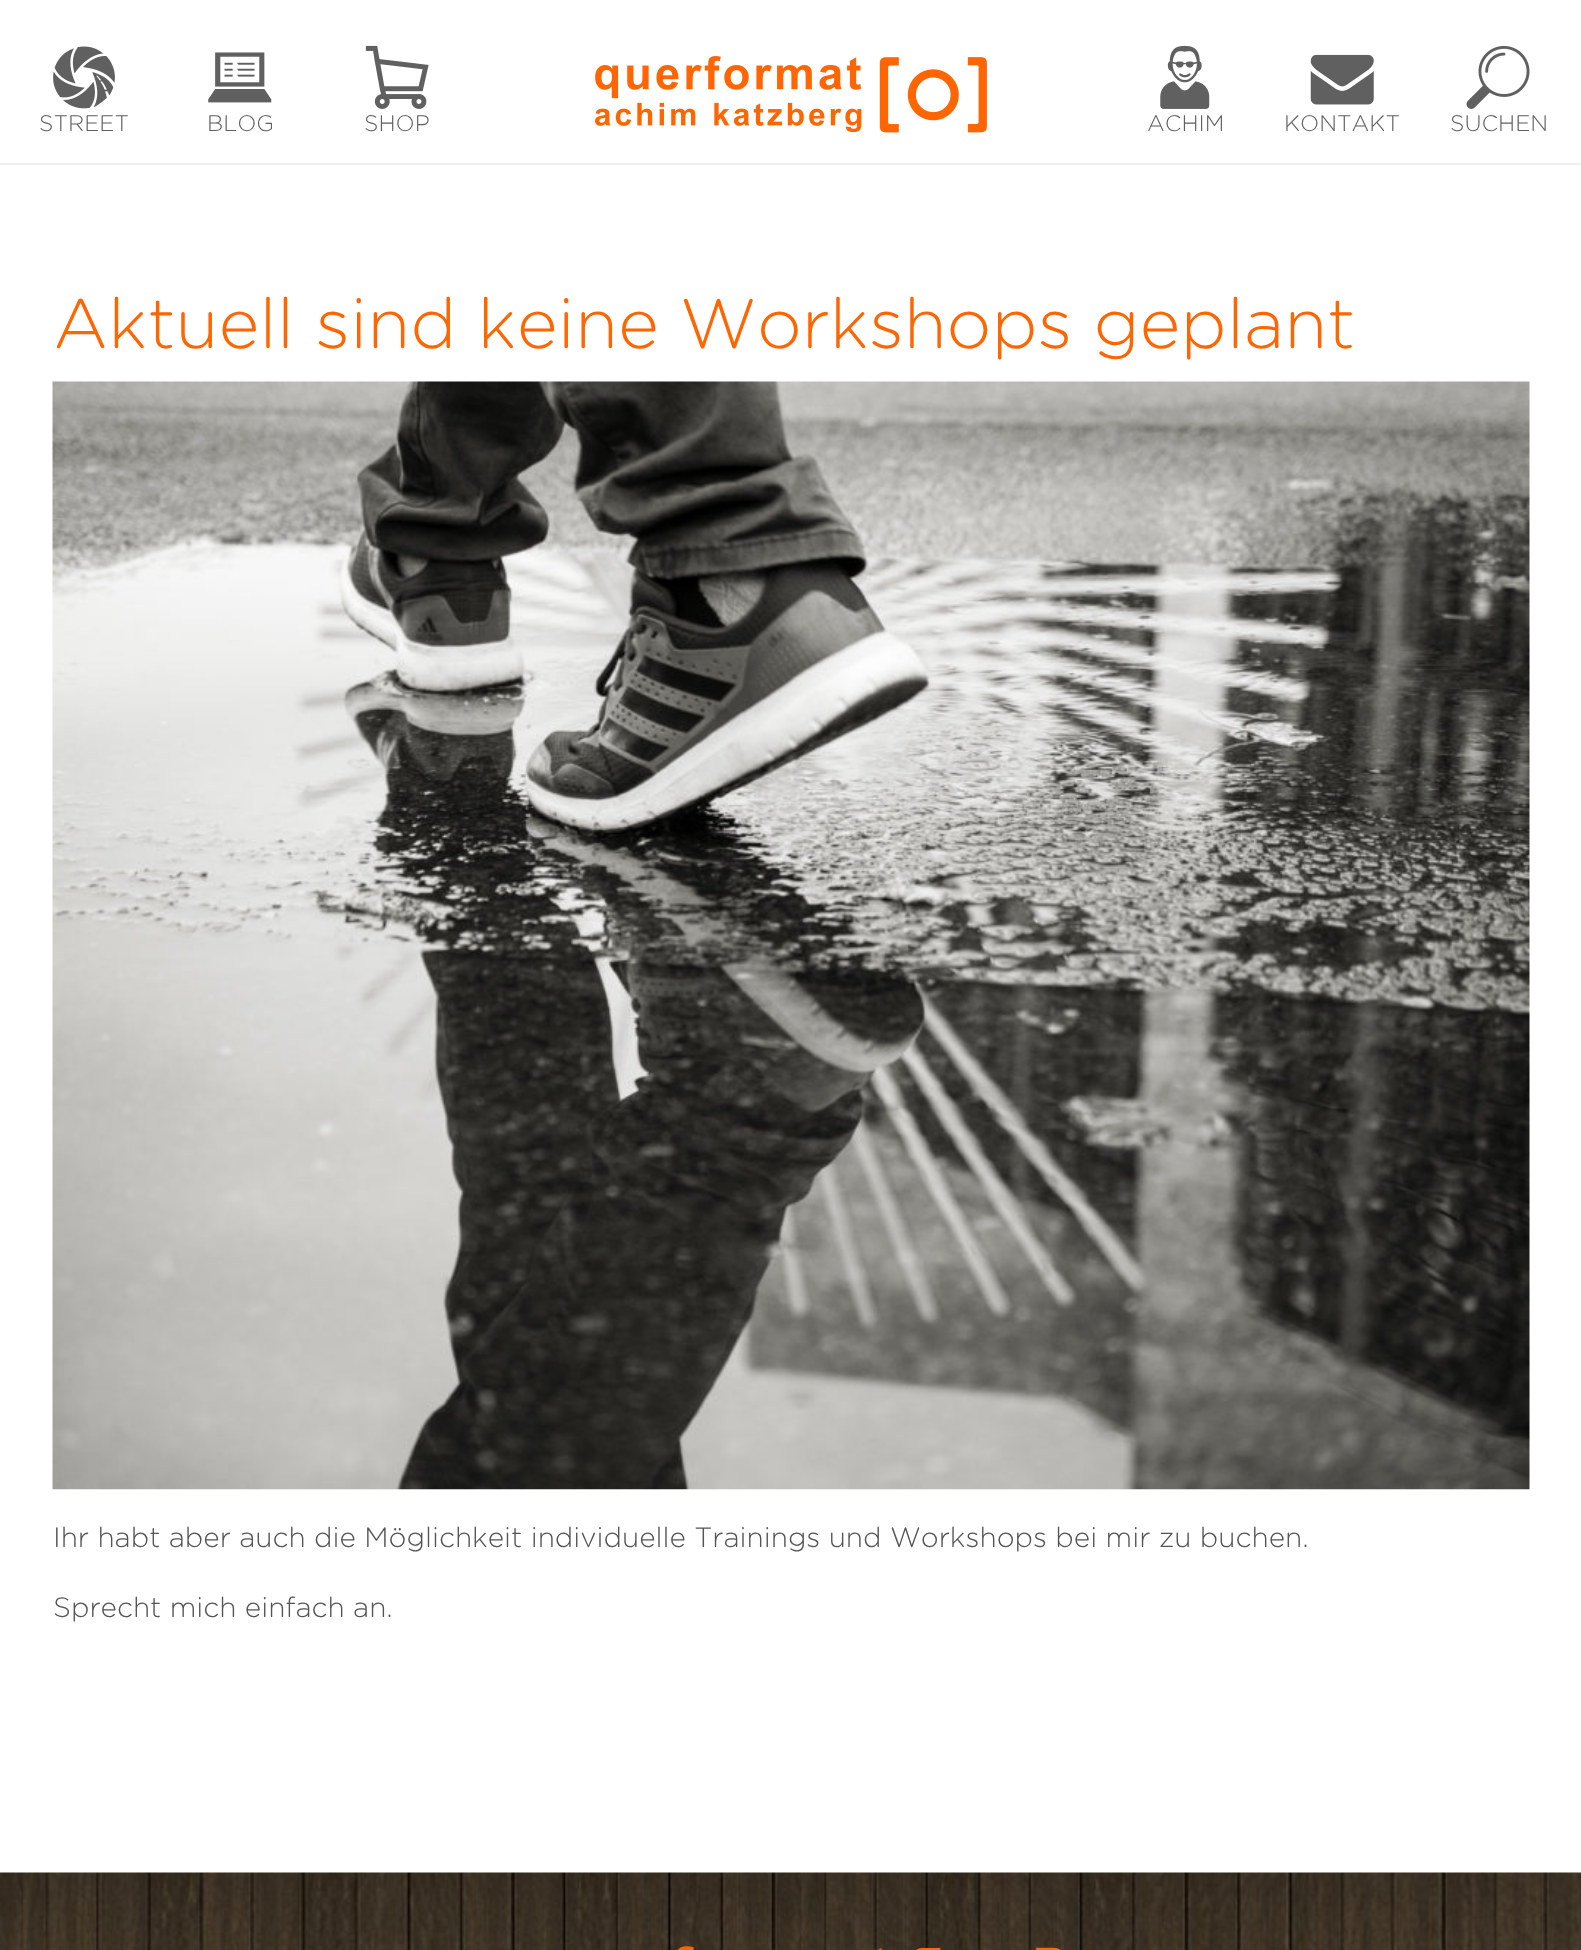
(async () => {
    const canvas = document.querySelector("canvas");
    canvas.width = 1581;
    canvas.height = 1950;
    const context = canvas.getContext("2d");
    context.miterLimit = 4;
    context.fontKerning = "normal";
    function write(s, x, y, font, color) {
        context.font = font;
        context.fillStyle = color;
        context.fillText(s, x, y);
    }
    function block(x, y, w, h, color) {
        context.fillStyle = color;
        context.fillRect(x, y, w, h);
    }
    async function photo(src, x, y, w, h) {
        const img = new Image();
        img.src = src;
        await img.decode();
        context.drawImage(img, x, y, w, h);
    }

    block(0, 0, 1581, 1950, "rgb(255, 255, 255)");
    block(0, 163, 1581, 2, "rgb(239, 239, 239)");
    await photo("media/1.png", 53, 46, 62, 63);
    write("STREET", 39, 131, "300 22.5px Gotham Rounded", "rgb(96, 96, 96)");
    await photo("media/2.png", 208, 52, 64, 51);
    write("BLOG", 207, 131, "300 22.5px Gotham Rounded", "rgb(96, 96, 96)");
    await photo("media/3.png", 365, 45, 64, 64);
    write("SHOP", 364, 131, "300 22.5px Gotham Rounded", "rgb(96, 96, 96)");
    await photo("media/4.png", 595, 56, 392, 77);
    await photo("media/5.png", 1160, 45, 50, 64);
    write("ACHIM", 1147, 131, "300 22.5px Gotham Rounded", "rgb(96, 96, 96)");
    await photo("media/6.png", 1310, 54, 64, 51);
    write("KONTAKT", 1284, 131, "300 22.5px Gotham Rounded", "rgb(96, 96, 96)");
    await photo("media/7.png", 1466, 45, 64, 64);
    write("SUCHEN", 1450, 131, "300 22.5px Gotham Rounded", "rgb(96, 96, 96)");
    write("Aktuell sind keine Workshops geplant", 53, 348, "300 70px Gotham Rounded", "rgb(255, 101, 0)");
    await photo("media/8.png", 52, 381, 1478, 1109);
    write("Ihr habt aber auch die Möglichkeit individuelle Trainings und Workshops bei mir zu buchen.", 53, 1547, "300 28px Gotham Rounded", "rgb(84, 84, 84)");
    write("Sprecht mich einfach an.", 53, 1617, "300 28px Gotham Rounded", "rgb(84, 84, 84)");
    await photo("media/9.png", 0, 1872, 1581, 78);
    await photo("media/10.png", 678, 1946, 383, 4);
})();
